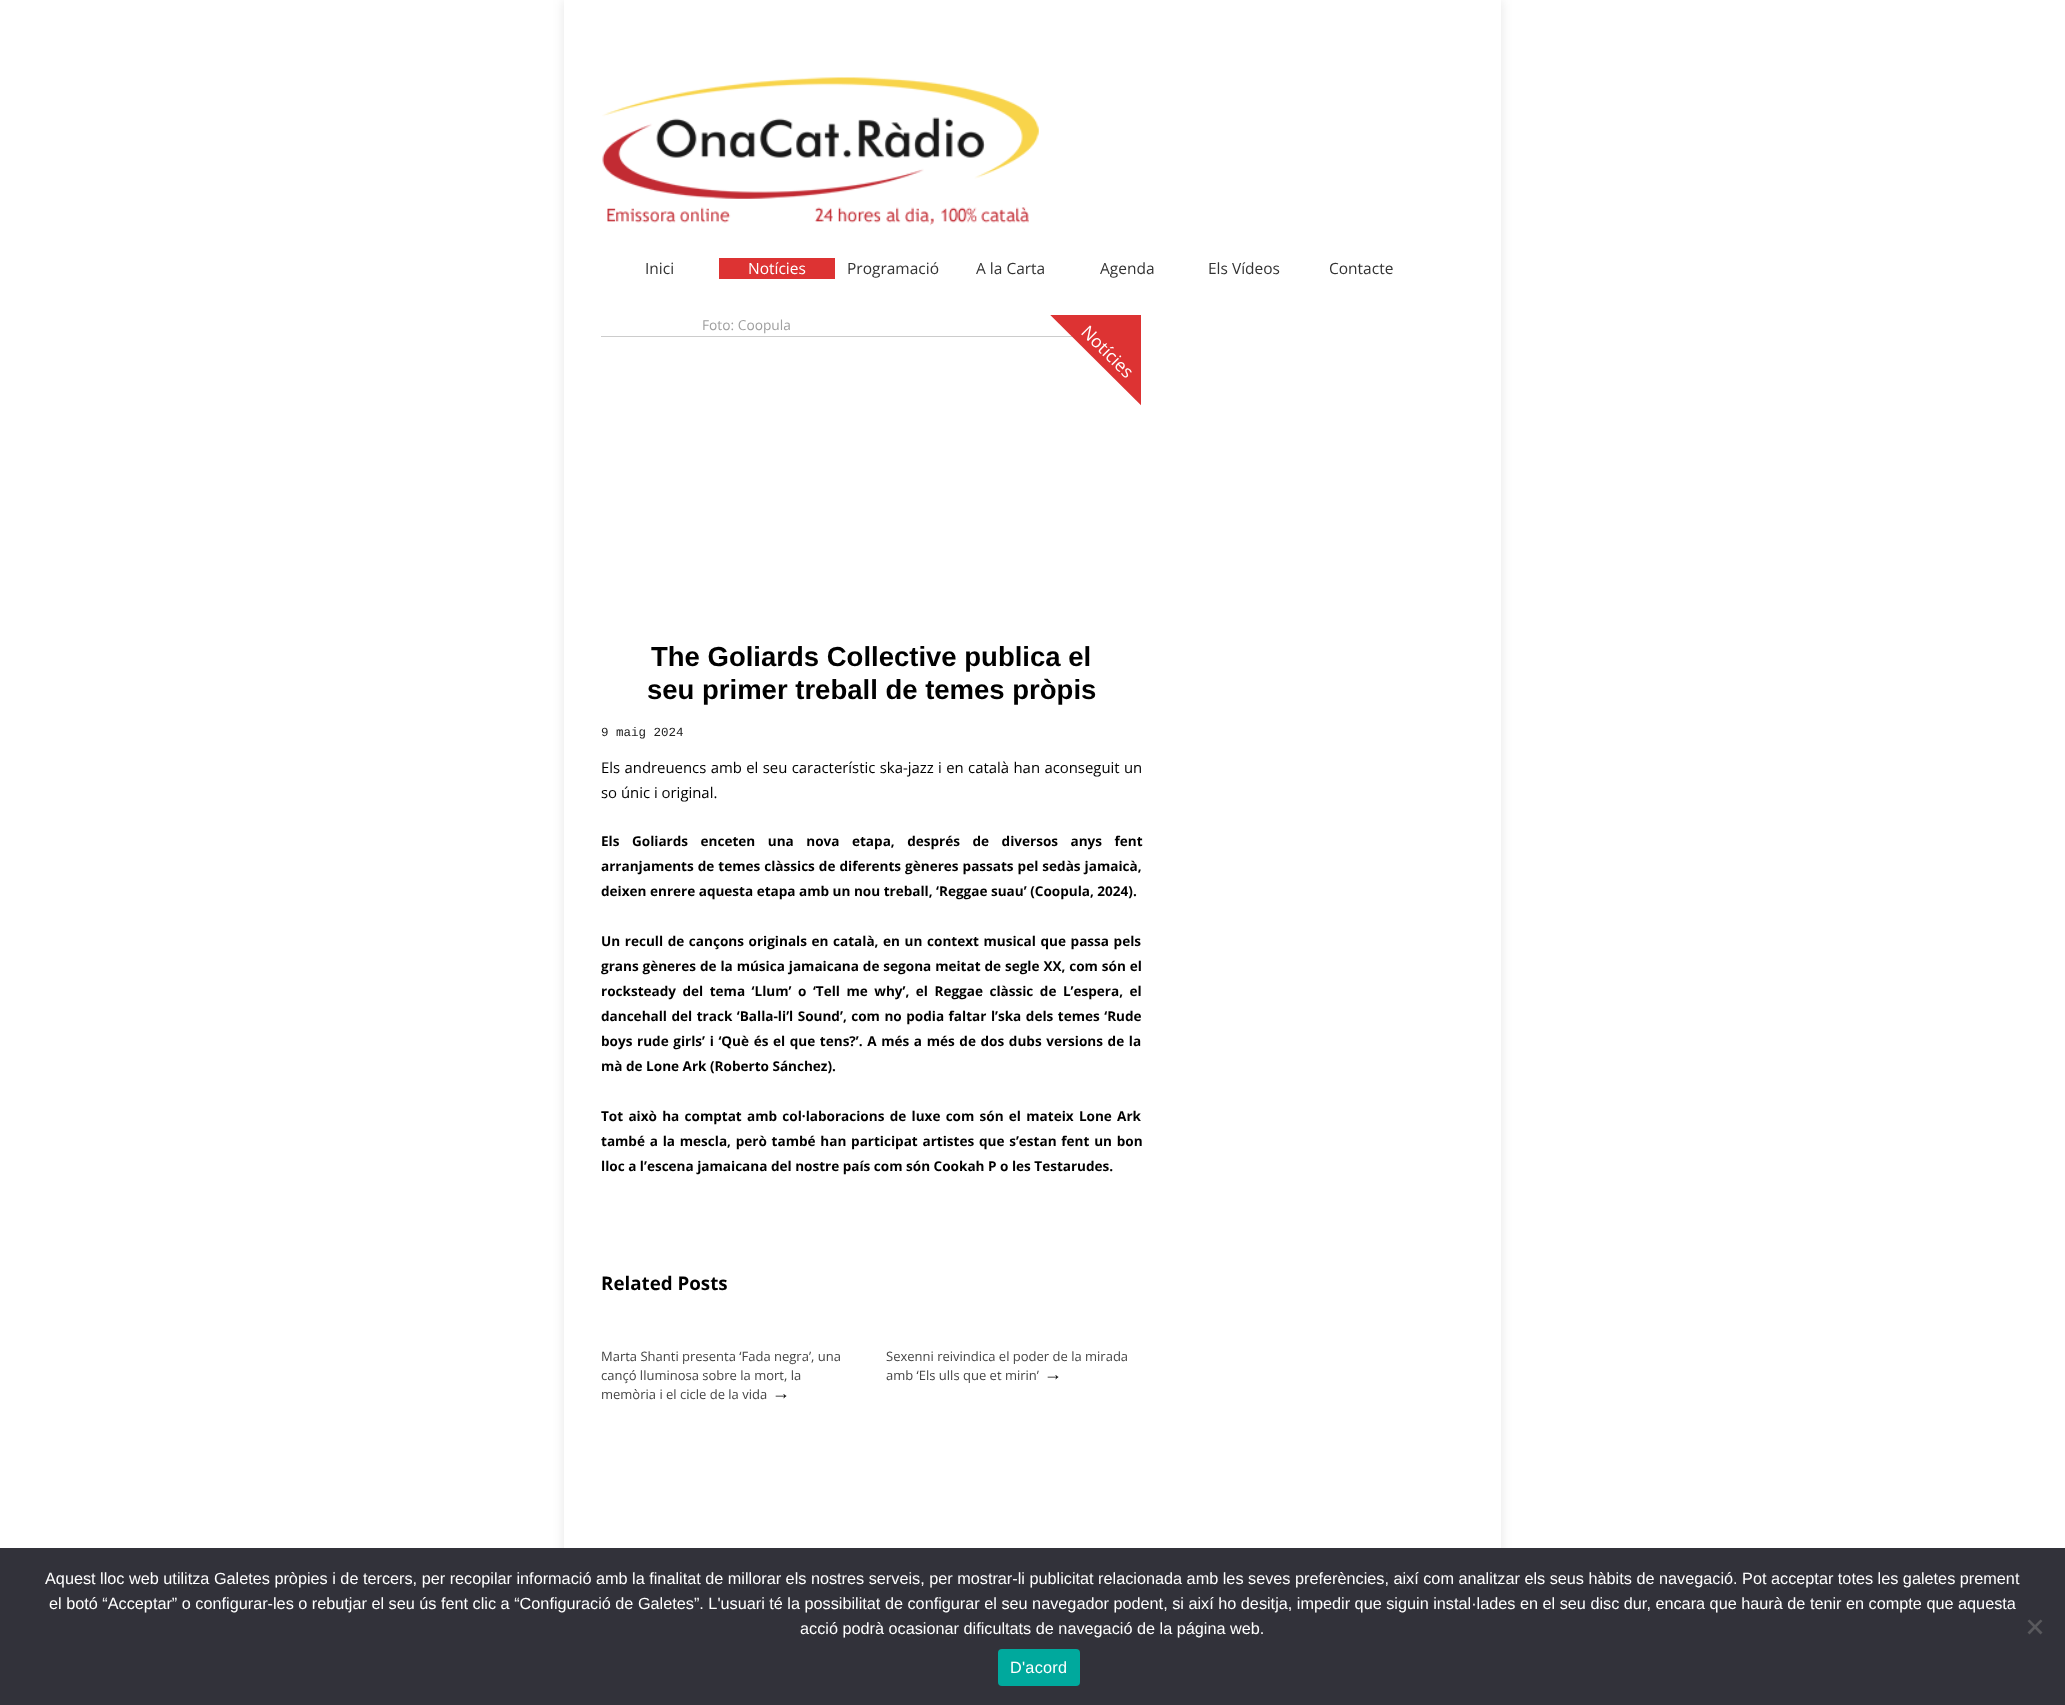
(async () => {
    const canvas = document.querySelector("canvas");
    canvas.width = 2065;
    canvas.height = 1705;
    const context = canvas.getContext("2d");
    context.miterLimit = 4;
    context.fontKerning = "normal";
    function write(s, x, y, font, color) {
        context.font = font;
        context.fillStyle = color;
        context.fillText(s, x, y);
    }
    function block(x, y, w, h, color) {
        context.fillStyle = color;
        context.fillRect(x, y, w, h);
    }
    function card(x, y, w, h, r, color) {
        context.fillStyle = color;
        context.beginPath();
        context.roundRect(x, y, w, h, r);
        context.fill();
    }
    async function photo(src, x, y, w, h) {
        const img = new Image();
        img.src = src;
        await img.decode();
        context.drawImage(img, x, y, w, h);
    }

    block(0, 0, 2065, 1705, "rgb(255, 255, 255)");
    context.save();
    context.beginPath();
    context.moveTo(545, 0);
    context.lineTo(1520, 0);
    context.lineTo(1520, 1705);
    context.lineTo(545, 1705);
    context.closePath();
    context.moveTo(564, 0);
    context.lineTo(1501, 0);
    context.lineTo(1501, 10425);
    context.lineTo(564, 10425);
    context.closePath();
    context.clip("evenodd");
    context.fillStyle = "rgba(0, 0, 0, 0.1)";
    context.filter = "blur(6px)";
    context.beginPath();
    context.rect(564, 0, 937, 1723);
    context.fill();
    context.filter = "none";
    context.restore();
    await photo("media/1.png", 602, 77, 437, 149);
    write("Inici", 645, 274, "15.5px Open Sans", "rgb(51, 51, 51)");
    block(719, 258, 116, 21, "rgb(221, 51, 51)");
    write("Notícies", 748, 274, "15.5px Open Sans", "rgb(255, 255, 255)");
    write("Programació", 847, 274, "15.5px Open Sans", "rgb(51, 51, 51)");
    write("A la Carta", 976, 274, "15.5px Open Sans", "rgb(51, 51, 51)");
    write("Agenda", 1100, 274, "15.5px Open Sans", "rgb(51, 51, 51)");
    write("Els Vídeos", 1208, 274, "15.5px Open Sans", "rgb(51, 51, 51)");
    write("Contacte", 1329, 274, "15.5px Open Sans", "rgb(51, 51, 51)");
    write("Foto: Coopula", 702, 330, "13.75px Open Sans", "rgb(159, 159, 159)");
    block(601, 336, 472, 1, "rgb(204, 204, 204)");
    context.save();
    context.beginPath();
    context.rect(601, 315, 540, 305);
    context.clip();
    context.fillStyle = "rgb(221, 51, 51)";
    context.beginPath();
    context.moveTo(1090, 192);
    context.lineTo(1267, 369);
    context.lineTo(1186, 450);
    context.lineTo(1009, 274);
    context.closePath();
    context.fill();
    context.restore();
    context.font = "17.5px Open Sans";
    context.fillStyle = "rgb(255, 255, 255)";
    context.save();
    context.translate(1080, 333);
    context.rotate(45 * Math.PI / 180);
    context.fillText("Notícies", 0, 0);
    context.restore();
    write("The Goliards Collective publica el", 651, 666, "bold 27.5px Liberation Sans", "rgb(0, 0, 0)");
    write("seu primer treball de temes pròpis", 647, 699, "bold 27.5px Liberation Sans", "rgb(0, 0, 0)");
    write("9 maig 2024", 601, 736, "12.5px Liberation Mono", "rgb(34, 34, 34)");
    context.wordSpacing = "0.5px";
    write("Els andreuencs amb el seu característic ska-jazz i en català han aconseguit un", 601, 773, "14.9px Open Sans", "rgb(0, 0, 0)");
    context.wordSpacing = "0px";
    write("so únic i original.", 601, 798, "14.9px Open Sans", "rgb(0, 0, 0)");
    context.wordSpacing = "9px";
    write("Els Goliards enceten una nova etapa, després de diversos anys fent", 601, 846, "bold 13.55px Open Sans", "rgb(0, 0, 0)");
    context.wordSpacing = "0.5px";
    write("arranjaments de temes clàssics de diferents gèneres passats pel sedàs jamaicà,", 601, 871, "bold 13.55px Open Sans", "rgb(0, 0, 0)");
    context.wordSpacing = "0px";
    write("deixen enrere aquesta etapa amb un nou treball, ‘Reggae suau’ (Coopula, 2024).", 601, 896, "bold 13.55px Open Sans", "rgb(0, 0, 0)");
    context.wordSpacing = "1.1px";
    write("Un recull de cançons originals en català, en un context musical que passa pels", 601, 946, "bold 13.55px Open Sans", "rgb(0, 0, 0)");
    context.wordSpacing = "0.4px";
    write("grans gèneres de la música jamaicana de segona meitat de segle XX, com són el", 601, 971, "bold 13.55px Open Sans", "rgb(0, 0, 0)");
    context.wordSpacing = "3px";
    write("rocksteady del tema ‘Llum’ o ‘Tell me why’, el Reggae clàssic de L’espera, el", 601, 996, "bold 13.55px Open Sans", "rgb(0, 0, 0)");
    context.wordSpacing = "1px";
    write("dancehall del track ‘Balla-li’l Sound’, com no podia faltar l’ska dels temes ‘Rude", 601, 1021, "bold 13.55px Open Sans", "rgb(0, 0, 0)");
    context.wordSpacing = "1.1px";
    write("boys rude girls’ i ‘Què és el que tens?’. A més a més de dos dubs versions de la", 601, 1046, "bold 13.55px Open Sans", "rgb(0, 0, 0)");
    context.wordSpacing = "0px";
    write("mà de Lone Ark (Roberto Sánchez).", 601, 1071, "bold 13.55px Open Sans", "rgb(0, 0, 0)");
    context.wordSpacing = "1.75px";
    write("Tot això ha comptat amb col·laboracions de luxe com són el mateix Lone Ark", 601, 1121, "bold 13.55px Open Sans", "rgb(0, 0, 0)");
    context.wordSpacing = "1.25px";
    write("també a la mescla, però també han participat artistes que s’estan fent un bon", 601, 1146, "bold 13.55px Open Sans", "rgb(0, 0, 0)");
    context.wordSpacing = "0px";
    write("lloc a l’escena jamaicana del nostre país com són Cookah P o les Testarudes.", 601, 1171, "bold 13.55px Open Sans", "rgb(0, 0, 0)");
    write("Related Posts", 601, 1290, "bold 18.75px Open Sans", "rgb(0, 0, 0)");
    write("Marta Shanti presenta ‘Fada negra’, una", 601, 1361, "13px Open Sans", "rgb(68, 68, 68)");
    write("cançó lluminosa sobre la mort, la", 601, 1380, "13px Open Sans", "rgb(68, 68, 68)");
    write("memòria i el cicle de la vida", 601, 1399, "13px Open Sans", "rgb(68, 68, 68)");
    write("→", 772, 1399, "18px Liberation Sans", "rgb(0, 0, 0)");
    write("Sexenni reivindica el poder de la mirada", 886, 1361, "13px Open Sans", "rgb(68, 68, 68)");
    write("amb ‘Els ulls que et mirin’", 886, 1380, "13px Open Sans", "rgb(68, 68, 68)");
    write("→", 1044, 1380, "18px Liberation Sans", "rgb(0, 0, 0)");
    block(0, 1548, 2065, 157, "rgb(50, 50, 58)");
    write("Aquest lloc web utilitza Galetes pròpies i de tercers, per recopilar informació amb la finalitat de millorar els nostres serveis, per mostrar-li publicitat relacionada amb les seves preferències, així com analitzar els seus hàbits de navegació. Pot acceptar totes les galetes prement", 45, 1584, "16.25px Liberation Sans", "rgb(255, 255, 255)");
    write("el botó “Acceptar” o configurar-les o rebutjar el seu ús fent clic a “Configuració de Galetes”. L'usuari té la possibilitat de configurar el seu navegador podent, si així ho desitja, impedir que siguin instal·lades en el seu disc dur, encara que haurà de tenir en compte que aquesta", 49, 1609, "16.25px Liberation Sans", "rgb(255, 255, 255)");
    write("acció podrà ocasionar dificultats de navegació de la página web.", 800, 1634, "16.25px Liberation Sans", "rgb(255, 255, 255)");
    context.fillStyle = "rgb(89, 89, 93)";
    context.beginPath();
    context.moveTo(2040.5, 1619.5);
    context.lineTo(2042.5, 1621);
    context.lineTo(2029.5, 1634.5);
    context.lineTo(2027.5, 1632.5);
    context.closePath();
    context.fill();
    context.beginPath();
    context.moveTo(2027.5, 1621);
    context.lineTo(2029.5, 1619.5);
    context.lineTo(2042.5, 1632.5);
    context.lineTo(2040.5, 1634.5);
    context.closePath();
    context.fill();
    card(998, 1649, 82, 37, 4, "rgb(0, 169, 157)");
    context.letterSpacing = "0.25px";
    write("D'acord", 1010, 1673, "16.25px Liberation Sans", "rgb(255, 255, 255)");
})();
